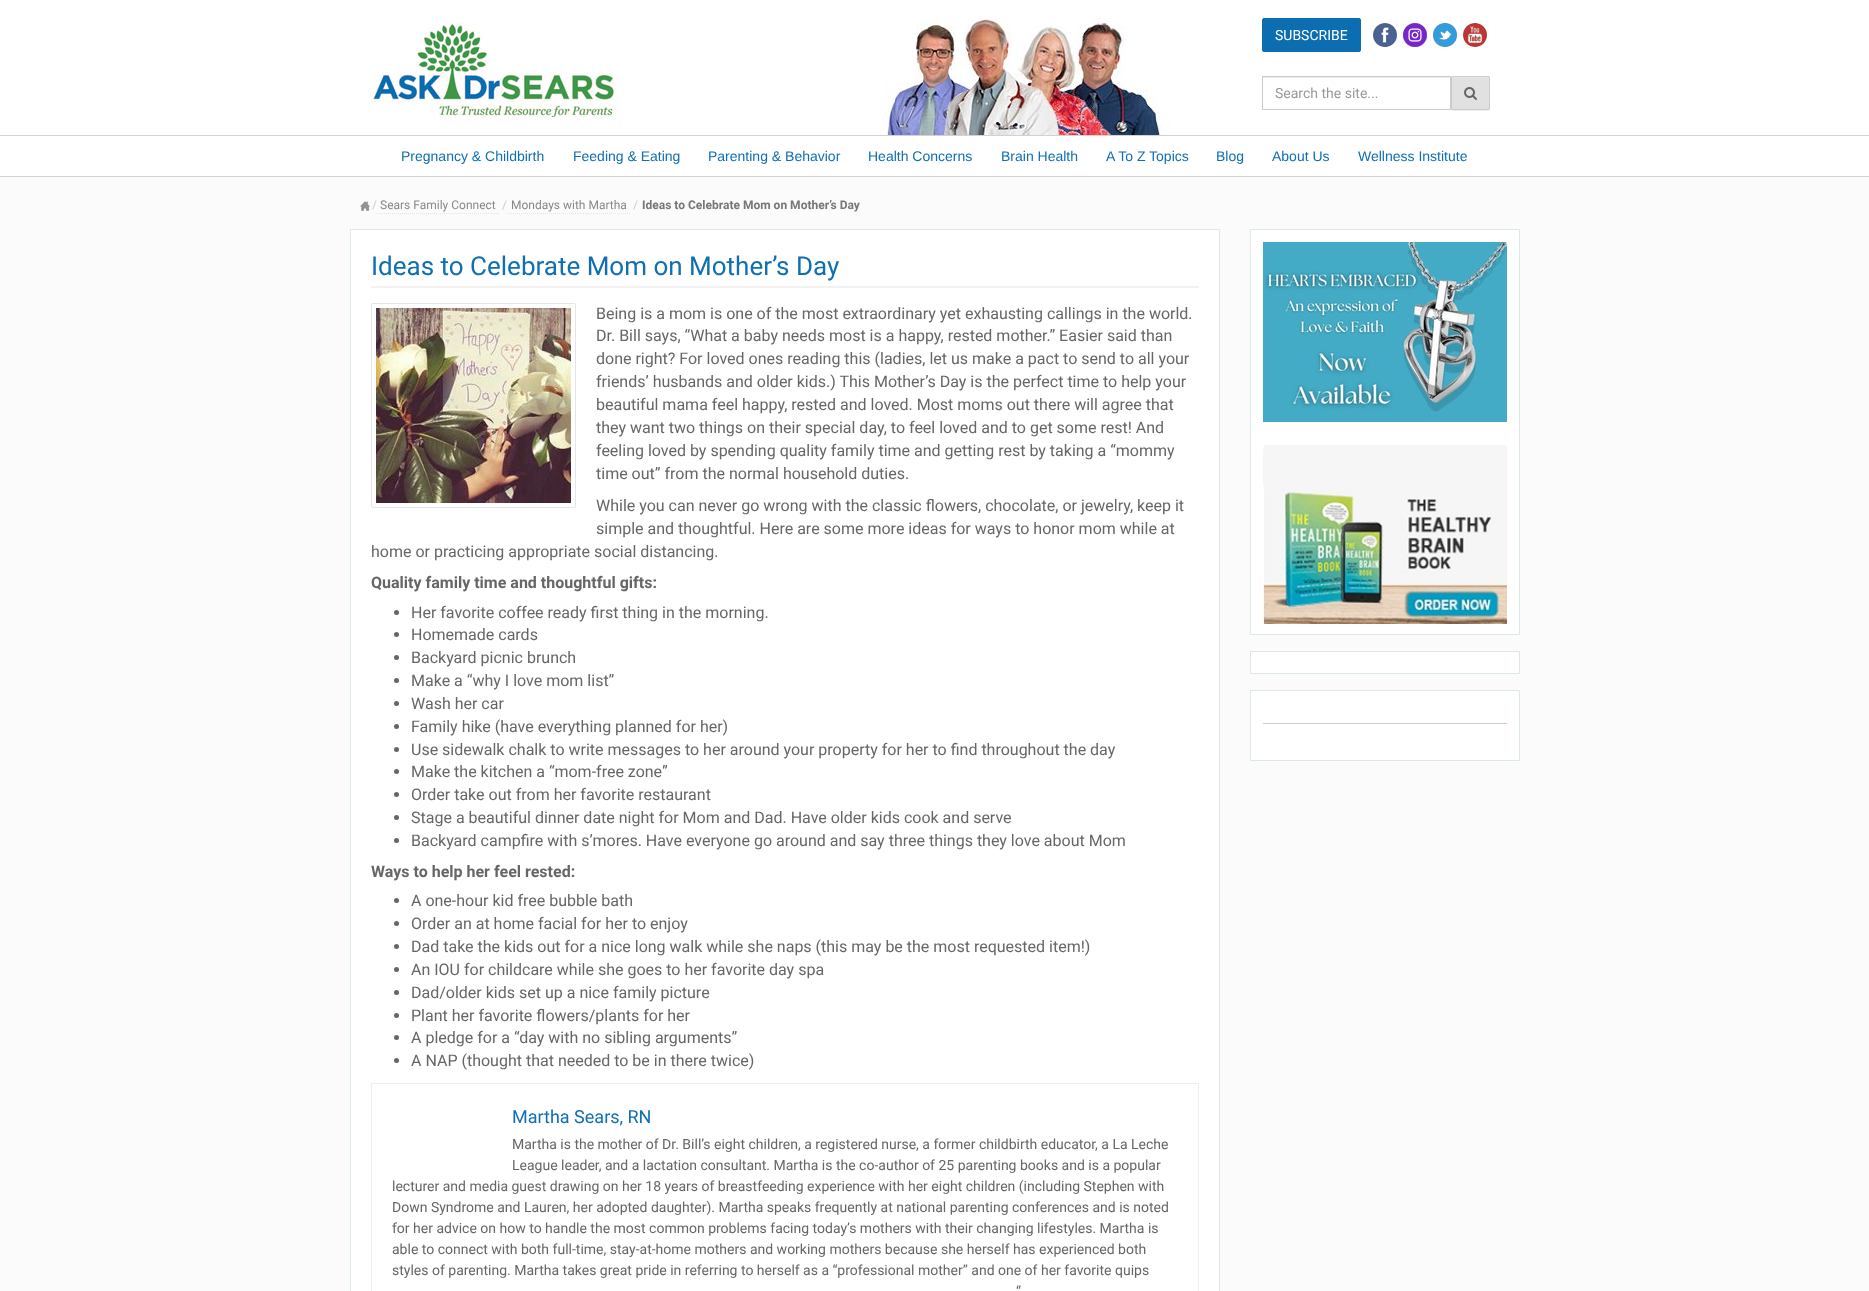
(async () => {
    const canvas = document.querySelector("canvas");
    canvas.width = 1869;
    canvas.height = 1291;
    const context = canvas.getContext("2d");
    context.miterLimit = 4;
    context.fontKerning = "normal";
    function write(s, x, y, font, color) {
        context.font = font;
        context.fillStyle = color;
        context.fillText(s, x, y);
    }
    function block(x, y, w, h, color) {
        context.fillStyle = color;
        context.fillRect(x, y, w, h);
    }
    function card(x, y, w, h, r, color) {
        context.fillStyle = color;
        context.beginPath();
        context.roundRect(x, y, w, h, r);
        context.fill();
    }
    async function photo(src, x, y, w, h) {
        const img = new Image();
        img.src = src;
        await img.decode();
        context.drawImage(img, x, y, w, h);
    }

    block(0, 0, 1869, 1291, "rgb(255, 255, 255)");
    block(0, 176, 1869, 1, "rgb(210, 210, 210)");
    await photo("media/1.png", 370, 23, 247, 94);
    await photo("media/2.png", 884, 18, 286, 117);
    context.fillStyle = "rgb(12, 110, 176)";
    context.beginPath();
    context.roundRect(1262.5, 18.5, 98, 33, 1.5);
    context.fill();
    context.strokeStyle = "rgb(12, 110, 176)";
    context.stroke();
    write("SUBSCRIBE", 1275, 40, "14px Roboto", "rgb(255, 255, 255)");
    context.fillStyle = "rgba(0, 0, 0, 0.07)";
    context.filter = "blur(0.5px)";
    context.beginPath();
    context.roundRect(1451, 77, 39, 34, 2);
    context.fill();
    context.filter = "none";
    block(1263, 77, 187, 1, "rgb(236, 236, 236)");
    context.strokeStyle = "rgb(204, 204, 204)";
    context.strokeRect(1262.5, 76.5, 188, 33);
    write("Search the site...", 1275, 98, "14px Roboto", "rgb(153, 153, 153)");
    card(1451, 76, 39, 34, 2, "rgb(225, 225, 225)");
    context.fillStyle = "rgb(230, 230, 230)";
    context.beginPath();
    context.moveTo(1453, 78);
    context.lineTo(1488.5, 78);
    context.bezierCurveTo(1489, 78, 1489, 78.5, 1489, 79);
    context.bezierCurveTo(1489, 75.5, 1486.5, 77, 1482, 77);
    context.lineTo(1459, 77);
    context.bezierCurveTo(1453.5, 77, 1452, 75.5, 1452, 79.5);
    context.bezierCurveTo(1452, 78.5, 1452.5, 78, 1453, 78);
    context.closePath();
    context.fill();
    context.beginPath();
    context.roundRect(1451.5, 76.5, 38, 33, 1.5);
    context.stroke();
    await photo("media/3.png", 1464, 87, 13, 13);
    await photo("media/4.png", 1373, 23, 24, 24);
    await photo("media/5.png", 1403, 23, 24, 24);
    await photo("media/6.png", 1433, 23, 24, 24);
    await photo("media/7.png", 1463, 23, 24, 24);
    block(0, 135, 1869, 1, "rgb(210, 210, 210)");
    write("Pregnancy & Childbirth", 401, 161, "14px Liberation Sans", "rgb(14, 111, 177)");
    write("Feeding & Eating", 573, 161, "14px Liberation Sans", "rgb(14, 111, 177)");
    write("Parenting & Behavior", 708, 161, "14px Liberation Sans", "rgb(14, 111, 177)");
    write("Health Concerns", 868, 161, "14px Liberation Sans", "rgb(14, 111, 177)");
    write("Brain Health", 1001, 161, "14px Liberation Sans", "rgb(14, 111, 177)");
    write("A To Z Topics", 1106, 161, "14px Liberation Sans", "rgb(14, 111, 177)");
    write("Blog", 1216, 161, "14px Liberation Sans", "rgb(14, 111, 177)");
    write("About Us", 1272, 161, "14px Liberation Sans", "rgb(14, 111, 177)");
    write("Wellness Institute", 1358, 161, "14px Liberation Sans", "rgb(14, 111, 177)");
    block(0, 177, 1869, 1114, "rgb(251, 251, 251)");
    await photo("media/8.png", 360, 201, 10, 10);
    write("/", 372, 209, "12px Roboto", "rgb(204, 204, 204)");
    write("Sears Family Connect", 380, 209, "12px Roboto", "rgb(136, 136, 136)");
    context.beginPath();
    context.moveTo(376, 213.5);
    context.lineTo(500, 213.5);
    context.strokeStyle = "rgb(229, 229, 229)";
    context.setLineDash([1, 1]);
    context.stroke();
    write("/", 502, 209, "12px Roboto", "rgb(204, 204, 204)");
    write("Mondays with Martha", 511, 209, "12px Roboto", "rgb(136, 136, 136)");
    context.beginPath();
    context.moveTo(507, 213.5);
    context.lineTo(631, 213.5);
    context.stroke();
    write("/", 633, 209, "12px Roboto", "rgb(204, 204, 204)");
    write("Ideas to Celebrate Mom on Mother’s Day", 642, 209, "bold 12px Roboto", "rgb(119, 119, 119)");
    context.fillStyle = "rgb(255, 255, 255)";
    context.beginPath();
    context.rect(350.5, 229.5, 869, 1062);
    context.fill();
    context.strokeStyle = "rgb(220, 233, 222)";
    context.setLineDash([]);
    context.stroke();
    block(371, 286, 828, 2, "rgb(242, 242, 242)");
    write("Ideas to Celebrate Mom on Mother’s Day", 371, 275, "26px Roboto", "rgb(14, 111, 177)");
    context.beginPath();
    context.roundRect(371.5, 303.5, 204, 204, 1.5);
    context.strokeStyle = "rgb(229, 229, 229)";
    context.stroke();
    await photo("media/9.png", 376, 308, 195, 195);
    write("Being is a mom is one of the most extraordinary yet exhausting callings in the world.", 596, 319, "16px Roboto", "rgb(102, 102, 102)");
    write("Dr. Bill says, “What a baby needs most is a happy, rested mother.” Easier said than", 596, 341, "16px Roboto", "rgb(102, 102, 102)");
    write("done right? For loved ones reading this (ladies, let us make a pact to send to all your", 596, 364, "16px Roboto", "rgb(102, 102, 102)");
    write("friends’ husbands and older kids.) This Mother’s Day is the perfect time to help your", 596, 387, "16px Roboto", "rgb(102, 102, 102)");
    write("beautiful mama feel happy, rested and loved. Most moms out there will agree that", 596, 410, "16px Roboto", "rgb(102, 102, 102)");
    write("they want two things on their special day, to feel loved and to get some rest! And", 596, 433, "16px Roboto", "rgb(102, 102, 102)");
    write("feeling loved by spending quality family time and getting rest by taking a “mommy", 596, 456, "16px Roboto", "rgb(102, 102, 102)");
    write("time out” from the normal household duties.", 596, 479, "16px Roboto", "rgb(102, 102, 102)");
    write("While you can never go wrong with the classic flowers, chocolate, or jewelry, keep it", 596, 511, "16px Roboto", "rgb(102, 102, 102)");
    write("simple and thoughtful. Here are some more ideas for ways to honor mom while at", 596, 534, "16px Roboto", "rgb(102, 102, 102)");
    write("home or practicing appropriate social distancing.", 371, 557, "16px Roboto", "rgb(102, 102, 102)");
    write("Quality family time and thoughtful gifts:", 371, 588, "bold 16px Roboto", "rgb(102, 102, 102)");
    context.beginPath();
    context.arc(396.5, 612.5, 2.5, 0, Math.PI * 2);
    context.fill();
    write("Her favorite coffee ready first thing in the morning.", 411, 618, "16px Roboto", "rgb(102, 102, 102)");
    context.beginPath();
    context.arc(396.5, 634.5, 2.5, 0, Math.PI * 2);
    context.fill();
    write("Homemade cards", 411, 640, "16px Roboto", "rgb(102, 102, 102)");
    context.beginPath();
    context.arc(396.5, 657.5, 2.5, 0, Math.PI * 2);
    context.fill();
    write("Backyard picnic brunch", 411, 663, "16px Roboto", "rgb(102, 102, 102)");
    context.beginPath();
    context.arc(396.5, 680.5, 2.5, 0, Math.PI * 2);
    context.fill();
    write("Make a “why I love mom list”", 411, 686, "16px Roboto", "rgb(102, 102, 102)");
    context.beginPath();
    context.arc(396.5, 703.5, 2.5, 0, Math.PI * 2);
    context.fill();
    write("Wash her car", 411, 709, "16px Roboto", "rgb(102, 102, 102)");
    context.beginPath();
    context.arc(396.5, 726.5, 2.5, 0, Math.PI * 2);
    context.fill();
    write("Family hike (have everything planned for her)", 411, 732, "16px Roboto", "rgb(102, 102, 102)");
    context.beginPath();
    context.arc(396.5, 749.5, 2.5, 0, Math.PI * 2);
    context.fill();
    write("Use sidewalk chalk to write messages to her around your property for her to find throughout the day", 411, 755, "16px Roboto", "rgb(102, 102, 102)");
    context.beginPath();
    context.arc(396.5, 771.5, 2.5, 0, Math.PI * 2);
    context.fill();
    write("Make the kitchen a “mom-free zone”", 411, 777, "16px Roboto", "rgb(102, 102, 102)");
    context.beginPath();
    context.arc(396.5, 794.5, 2.5, 0, Math.PI * 2);
    context.fill();
    write("Order take out from her favorite restaurant", 411, 800, "16px Roboto", "rgb(102, 102, 102)");
    context.beginPath();
    context.arc(396.5, 817.5, 2.5, 0, Math.PI * 2);
    context.fill();
    write("Stage a beautiful dinner date night for Mom and Dad. Have older kids cook and serve", 411, 823, "16px Roboto", "rgb(102, 102, 102)");
    context.beginPath();
    context.arc(396.5, 840.5, 2.5, 0, Math.PI * 2);
    context.fill();
    write("Backyard campfire with s’mores. Have everyone go around and say three things they love about Mom", 411, 846, "16px Roboto", "rgb(102, 102, 102)");
    write("Ways to help her feel rested:", 371, 877, "bold 16px Roboto", "rgb(102, 102, 102)");
    context.beginPath();
    context.arc(396.5, 900.5, 2.5, 0, Math.PI * 2);
    context.fill();
    write("A one-hour kid free bubble bath", 411, 906, "16px Roboto", "rgb(102, 102, 102)");
    context.beginPath();
    context.arc(396.5, 923.5, 2.5, 0, Math.PI * 2);
    context.fill();
    write("Order an at home facial for her to enjoy", 411, 929, "16px Roboto", "rgb(102, 102, 102)");
    context.beginPath();
    context.arc(396.5, 946.5, 2.5, 0, Math.PI * 2);
    context.fill();
    write("Dad take the kids out for a nice long walk while she naps (this may be the most requested item!)", 411, 952, "16px Roboto", "rgb(102, 102, 102)");
    context.beginPath();
    context.arc(396.5, 969.5, 2.5, 0, Math.PI * 2);
    context.fill();
    write("An IOU for childcare while she goes to her favorite day spa", 411, 975, "16px Roboto", "rgb(102, 102, 102)");
    context.beginPath();
    context.arc(396.5, 992.5, 2.5, 0, Math.PI * 2);
    context.fill();
    write("Dad/older kids set up a nice family picture", 411, 998, "16px Roboto", "rgb(102, 102, 102)");
    context.beginPath();
    context.arc(396.5, 1015.5, 2.5, 0, Math.PI * 2);
    context.fill();
    write("Plant her favorite flowers/plants for her", 411, 1021, "16px Roboto", "rgb(102, 102, 102)");
    context.beginPath();
    context.arc(396.5, 1037.5, 2.5, 0, Math.PI * 2);
    context.fill();
    write("A pledge for a “day with no sibling arguments”", 411, 1043, "16px Roboto", "rgb(102, 102, 102)");
    context.beginPath();
    context.arc(396.5, 1060.5, 2.5, 0, Math.PI * 2);
    context.fill();
    write("A NAP (thought that needed to be in there twice)", 411, 1066, "16px Roboto", "rgb(102, 102, 102)");
    context.strokeStyle = "rgb(238, 238, 238)";
    context.strokeRect(371.5, 1083.5, 827, 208);
    write("Martha Sears, RN", 512, 1123, "18px Roboto", "rgb(14, 111, 177)");
    write("Martha is the mother of Dr. Bill’s eight children, a registered nurse, a former childbirth educator, a La Leche", 512, 1149, "14px Roboto", "rgb(102, 102, 102)");
    write("League leader, and a lactation consultant. Martha is the co-author of 25 parenting books and is a popular", 512, 1170, "14px Roboto", "rgb(102, 102, 102)");
    write("lecturer and media guest drawing on her 18 years of breastfeeding experience with her eight children (including Stephen with", 392, 1191, "14px Roboto", "rgb(102, 102, 102)");
    write("Down Syndrome and Lauren, her adopted daughter). Martha speaks frequently at national parenting conferences and is noted", 392, 1212, "14px Roboto", "rgb(102, 102, 102)");
    write("for her advice on how to handle the most common problems facing today’s mothers with their changing lifestyles. Martha is", 392, 1233, "14px Roboto", "rgb(102, 102, 102)");
    write("able to connect with both full-time, stay-at-home mothers and working mothers because she herself has experienced both", 392, 1254, "14px Roboto", "rgb(102, 102, 102)");
    write("styles of parenting. Martha takes great pride in referring to herself as a “professional mother” and one of her favorite quips", 392, 1275, "14px Roboto", "rgb(102, 102, 102)");
    write("“", 1016, 1296, "14px Roboto", "rgb(102, 102, 102)");
    context.fillStyle = "rgb(255, 255, 255)";
    context.beginPath();
    context.rect(1250.5, 229.5, 269, 405);
    context.fill();
    context.strokeStyle = "rgb(220, 233, 222)";
    context.stroke();
    await photo("media/10.png", 1263, 242, 244, 180);
    await photo("media/11.png", 1263, 445, 244, 179);
    context.beginPath();
    context.rect(1250.5, 651.5, 269, 22);
    context.fill();
    context.stroke();
    context.beginPath();
    context.rect(1250.5, 690.5, 269, 70);
    context.fill();
    context.stroke();
    block(1263, 723, 244, 1, "rgb(204, 204, 204)");
})();
